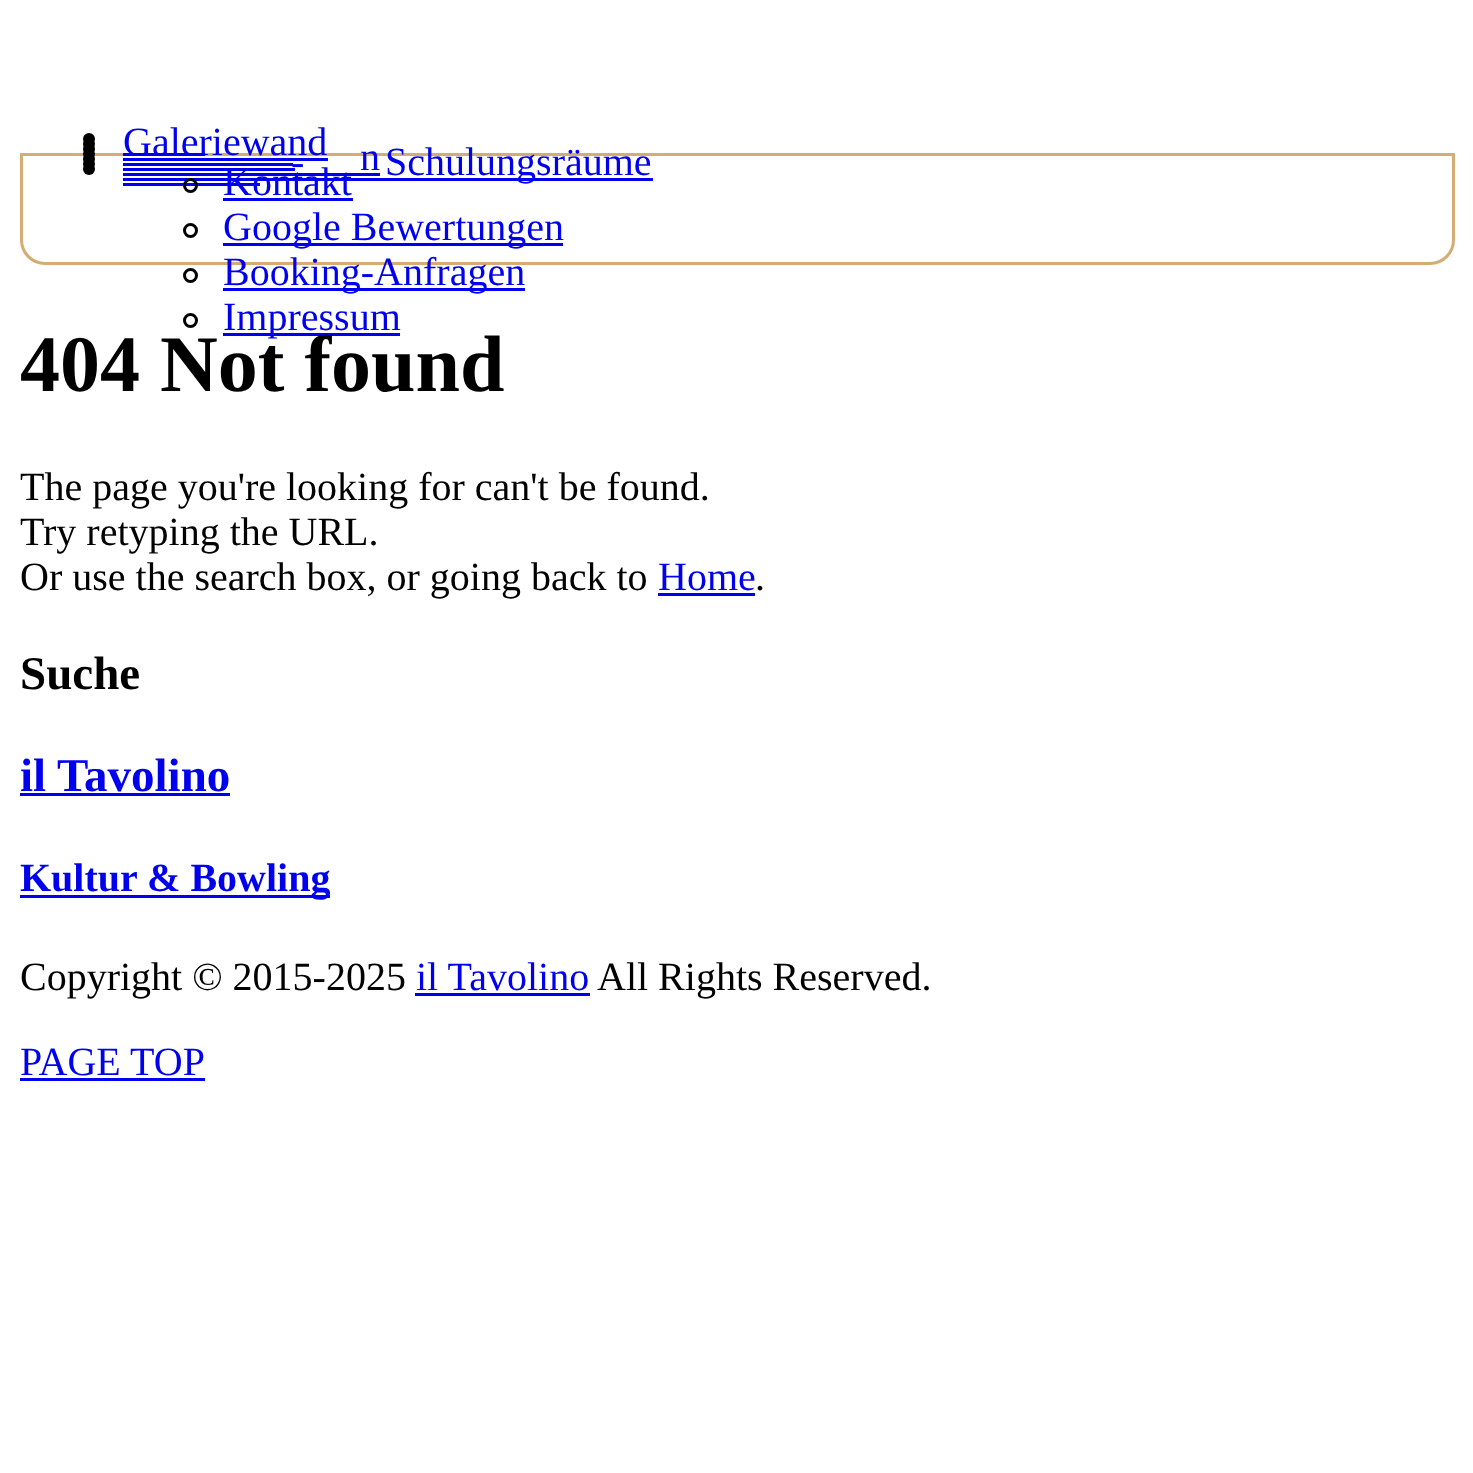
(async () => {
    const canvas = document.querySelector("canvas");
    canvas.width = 1473;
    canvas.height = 1473;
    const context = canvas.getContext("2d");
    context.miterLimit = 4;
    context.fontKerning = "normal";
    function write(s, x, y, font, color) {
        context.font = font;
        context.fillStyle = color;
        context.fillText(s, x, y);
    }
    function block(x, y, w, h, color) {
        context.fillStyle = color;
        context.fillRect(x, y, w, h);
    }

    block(0, 0, 1473, 1473, "rgb(255, 255, 255)");
    context.beginPath();
    context.roundRect(21.5, 154.5, 1432, 109, [0, 0, 23.5, 23.5]);
    context.strokeStyle = "rgb(214, 172, 117)";
    context.lineWidth = 3;
    context.stroke();
    context.fillStyle = "rgb(0, 0, 0)";
    context.beginPath();
    context.arc(89, 169, 6, 0, Math.PI * 2);
    context.fill();
    context.beginPath();
    context.arc(89, 164, 6, 0, Math.PI * 2);
    context.fill();
    context.beginPath();
    context.arc(89, 159, 6, 0, Math.PI * 2);
    context.fill();
    context.beginPath();
    context.arc(89, 154, 6, 0, Math.PI * 2);
    context.fill();
    context.beginPath();
    context.arc(89, 149, 6, 0, Math.PI * 2);
    context.fill();
    context.beginPath();
    context.arc(89, 144, 6, 0, Math.PI * 2);
    context.fill();
    write("Galeriewand", 123, 155, "40px Liberation Serif", "rgb(0, 0, 238)");
    block(123, 158, 205, 3, "rgb(0, 0, 238)");
    block(123, 163, 170, 3, "rgb(0, 0, 238)");
    write("-", 291, 175, "40px Liberation Serif", "rgb(0, 0, 238)");
    block(123, 178, 530, 3, "rgb(0, 0, 238)");
    write("Schulungsräume", 385, 175, "40px Liberation Serif", "rgb(0, 0, 238)");
    block(123, 168, 172, 3, "rgb(0, 0, 238)");
    write("n", 360, 170, "40px Liberation Serif", "rgb(0, 0, 238)");
    block(123, 173, 257, 3, "rgb(0, 0, 238)");
    block(123, 183, 137, 3, "rgb(0, 0, 238)");
    context.fillStyle = "rgb(0, 0, 0)";
    context.beginPath();
    context.arc(89, 139, 6, 0, Math.PI * 2);
    context.fill();
    block(123, 153, 82, 3, "rgb(0, 0, 238)");
    context.beginPath();
    context.arc(190.5, 185.5, 6, 0, Math.PI * 2);
    context.strokeStyle = "rgb(0, 0, 0)";
    context.stroke();
    write("Kontakt", 223, 195, "40px Liberation Serif", "rgb(0, 0, 238)");
    block(223, 198, 130, 3, "rgb(0, 0, 238)");
    context.beginPath();
    context.arc(190.5, 230.5, 6, 0, Math.PI * 2);
    context.stroke();
    block(223, 243, 340, 3, "rgb(0, 0, 238)");
    write("Google Bewertungen", 223, 240, "40px Liberation Serif", "rgb(0, 0, 238)");
    context.beginPath();
    context.arc(190.5, 275.5, 6, 0, Math.PI * 2);
    context.stroke();
    block(223, 288, 302, 3, "rgb(0, 0, 238)");
    write("Booking-Anfragen", 223, 285, "40px Liberation Serif", "rgb(0, 0, 238)");
    context.beginPath();
    context.arc(190.5, 320.5, 6, 0, Math.PI * 2);
    context.stroke();
    block(223, 333, 177, 3, "rgb(0, 0, 238)");
    write("Impressum", 223, 330, "40px Liberation Serif", "rgb(0, 0, 238)");
    write("404 Not found", 20, 391, "bold 80px Liberation Serif", "rgb(0, 0, 0)");
    write("The page you're looking for can't be found.", 20, 500, "40px Liberation Serif", "rgb(0, 0, 0)");
    write("Try retyping the URL.", 20, 545, "40px Liberation Serif", "rgb(0, 0, 0)");
    write("Or use the search box, or going back to", 20, 590, "40px Liberation Serif", "rgb(0, 0, 0)");
    write("Home", 658, 590, "40px Liberation Serif", "rgb(0, 0, 238)");
    block(658, 593, 97, 3, "rgb(0, 0, 238)");
    write(".", 755, 590, "40px Liberation Serif", "rgb(0, 0, 0)");
    write("Suche", 20, 689, "bold 47px Liberation Serif", "rgb(0, 0, 0)");
    write("il Tavolino", 20, 791, "bold 47px Liberation Serif", "rgb(0, 0, 238)");
    block(20, 793, 210, 3, "rgb(0, 0, 238)");
    block(20, 895, 310, 3, "rgb(0, 0, 238)");
    write("Kultur & Bowling", 20, 891, "bold 40px Liberation Serif", "rgb(0, 0, 238)");
    write("Copyright © 2015-2025", 20, 990, "40px Liberation Serif", "rgb(0, 0, 0)");
    write("il Tavolino", 416, 990, "40px Liberation Serif", "rgb(0, 0, 238)");
    block(415, 993, 175, 3, "rgb(0, 0, 238)");
    write("All Rights Reserved.", 597, 990, "40px Liberation Serif", "rgb(0, 0, 0)");
    write("PAGE TOP", 20, 1075, "40px Liberation Serif", "rgb(0, 0, 238)");
    block(20, 1078, 185, 3, "rgb(0, 0, 238)");
})();
